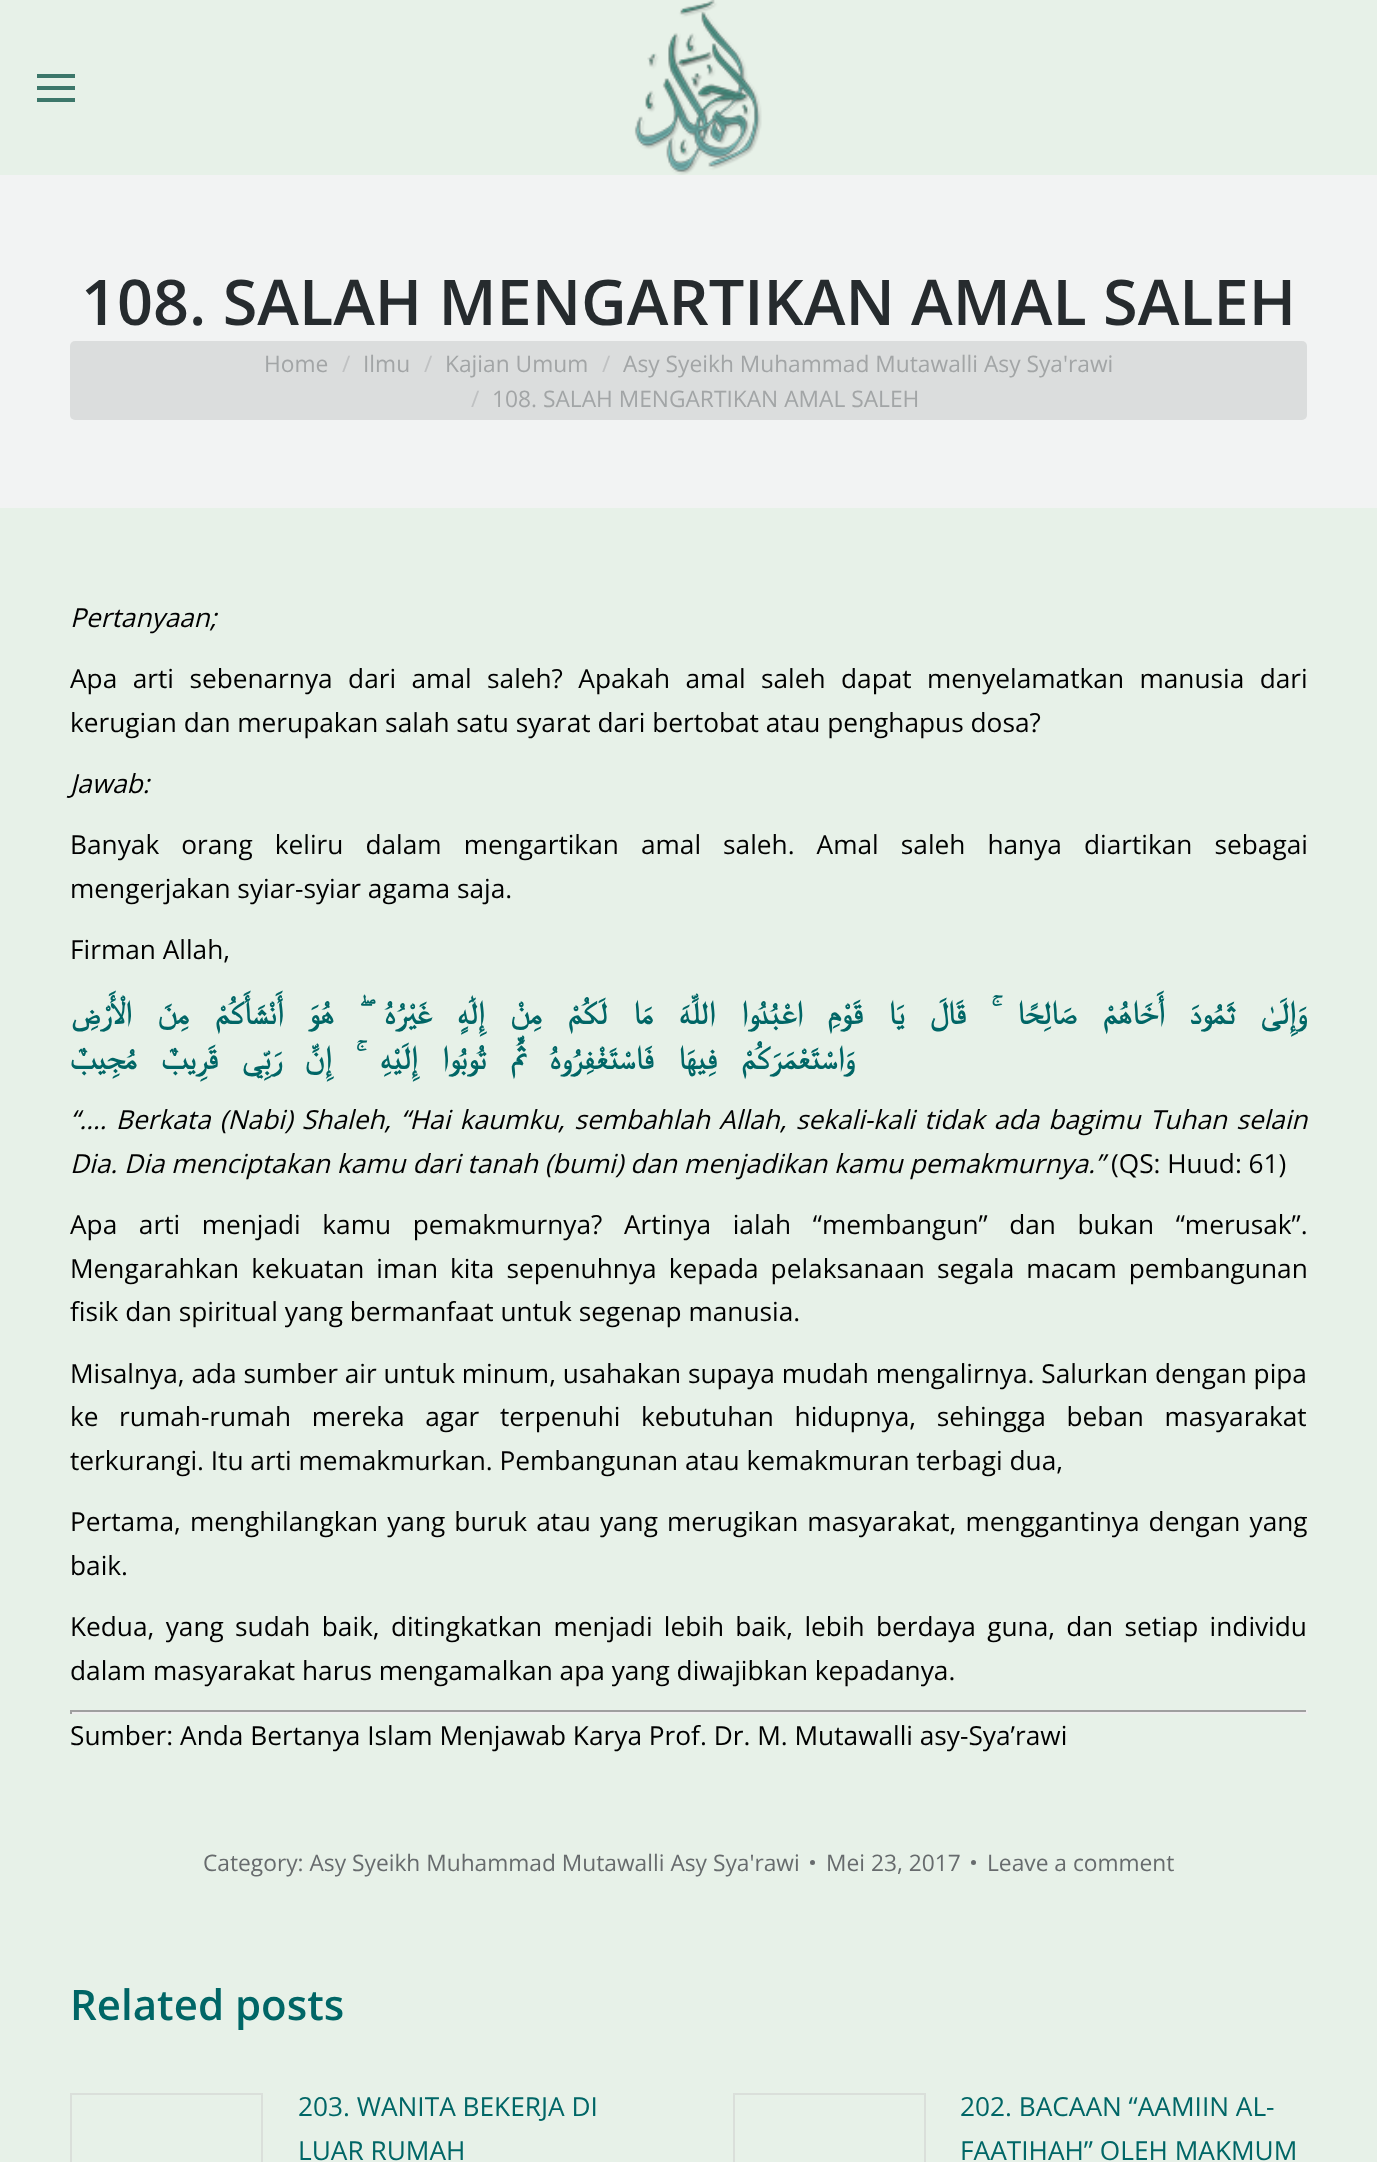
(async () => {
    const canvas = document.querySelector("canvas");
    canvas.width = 1377;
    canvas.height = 2162;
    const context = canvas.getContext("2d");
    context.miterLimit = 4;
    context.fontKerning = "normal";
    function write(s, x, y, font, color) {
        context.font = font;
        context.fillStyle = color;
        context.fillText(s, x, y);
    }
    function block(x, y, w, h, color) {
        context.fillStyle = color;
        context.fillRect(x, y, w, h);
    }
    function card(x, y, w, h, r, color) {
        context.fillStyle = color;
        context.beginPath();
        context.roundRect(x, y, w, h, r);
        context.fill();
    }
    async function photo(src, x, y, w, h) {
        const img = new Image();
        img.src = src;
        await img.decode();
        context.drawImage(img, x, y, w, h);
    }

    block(0, 0, 1377, 2162, "rgb(231, 241, 232)");
    block(37, 74, 38, 4, "rgb(60, 119, 106)");
    block(37, 86, 38, 4, "rgb(60, 119, 106)");
    block(37, 98, 38, 4, "rgb(60, 119, 106)");
    await photo("media/1.png", 634, 0, 128, 175);
    block(0, 175, 1377, 333, "rgb(242, 243, 243)");
    write("108. SALAH MENGARTIKAN AMAL SALEH", 81, 325, "600 63px Open Sans", "rgb(38, 43, 46)");
    card(70, 341, 1237, 79, 5, "rgb(219, 221, 221)");
    write("Home", 264, 372, "22.75px Open Sans", "rgb(162, 165, 166)");
    write("/", 342, 372, "22.75px Open Sans", "rgb(191, 193, 194)");
    write("Ilmu", 363, 372, "22.75px Open Sans", "rgb(162, 165, 166)");
    write("/", 424, 372, "22.75px Open Sans", "rgb(191, 193, 194)");
    write("Kajian Umum", 445, 372, "22.75px Open Sans", "rgb(162, 165, 166)");
    write("/", 602, 372, "22.75px Open Sans", "rgb(191, 193, 194)");
    write("Asy Syeikh Muhammad Mutawalli Asy Sya'rawi", 623, 372, "22.75px Open Sans", "rgb(162, 165, 166)");
    write("/", 471, 407, "22.75px Open Sans", "rgb(191, 193, 194)");
    write("108. SALAH MENGARTIKAN AMAL SALEH", 492, 407, "22.75px Open Sans", "rgb(162, 165, 166)");
    write("Pertanyaan;", 70, 627, "italic 26.25px Open Sans", "rgb(0, 0, 0)");
    context.wordSpacing = "8.6px";
    write("Apa arti sebenarnya dari amal saleh? Apakah amal saleh dapat menyelamatkan manusia dari", 70, 688, "26.25px Open Sans", "rgb(0, 0, 0)");
    context.wordSpacing = "0px";
    write("kerugian dan merupakan salah satu syarat dari bertobat atau penghapus dosa?", 70, 732, "26.25px Open Sans", "rgb(0, 0, 0)");
    write("Jawab:", 70, 793, "italic 26.25px Open Sans", "rgb(0, 0, 0)");
    context.wordSpacing = "15.25px";
    write("Banyak orang keliru dalam mengartikan amal saleh. Amal saleh hanya diartikan sebagai", 70, 854, "26.25px Open Sans", "rgb(0, 0, 0)");
    context.wordSpacing = "0px";
    write("mengerjakan syiar-syiar agama saja.", 70, 898, "26.25px Open Sans", "rgb(0, 0, 0)");
    write("Firman Allah,", 70, 959, "26.25px Open Sans", "rgb(0, 0, 0)");
    context.wordSpacing = "17.75px";
    context.direction = "rtl";
    write("وَإِلَىٰ ثَمُودَ أَخَاهُمْ صَالِحًا ۚ قَالَ يَا قَوْمِ اعْبُدُوا اللَّهَ مَا لَكُمْ مِنْ إِلَٰهٍ غَيْرُهُ ۖ هُوَ أَنْشَأَكُمْ مِنَ الْأَرْضِ", 1307, 1024, "bold 31.5px FreeSerif", "rgb(0, 102, 102)");
    context.wordSpacing = "16.25px";
    write("وَاسْتَعْمَرَكُمْ فِيهَا فَاسْتَغْفِرُوهُ ثُمَّ تُوبُوا إِلَيْهِ ۚ إِنَّ رَبِّي قَرِيبٌ مُجِيبٌ", 853, 1069, "bold 31.5px FreeSerif", "rgb(0, 102, 102)");
    context.wordSpacing = "2.5px";
    context.direction = "ltr";
    write("“…. Berkata (Nabi) Shaleh, “Hai kaumku, sembahlah Allah, sekali-kali tidak ada bagimu Tuhan selain", 70, 1129, "italic 26.25px Open Sans", "rgb(0, 0, 0)");
    context.wordSpacing = "0px";
    write("Dia. Dia menciptakan kamu dari tanah (bumi) dan menjadikan kamu pemakmurnya.”", 70, 1173, "italic 26.25px Open Sans", "rgb(0, 0, 0)");
    write("(QS: Huud: 61)", 1111, 1173, "26.25px Open Sans", "rgb(0, 0, 0)");
    context.wordSpacing = "14.75px";
    write("Apa arti menjadi kamu pemakmurnya? Artinya ialah “membangun” dan bukan “merusak”.", 70, 1234, "26.25px Open Sans", "rgb(0, 0, 0)");
    context.wordSpacing = "5.25px";
    write("Mengarahkan kekuatan iman kita sepenuhnya kepada pelaksanaan segala macam pembangunan", 70, 1278, "26.25px Open Sans", "rgb(0, 0, 0)");
    context.wordSpacing = "0px";
    write("fisik dan spiritual yang bermanfaat untuk segenap manusia.", 70, 1321, "26.25px Open Sans", "rgb(0, 0, 0)");
    write("Misalnya, ada sumber air untuk minum, usahakan supaya mudah mengalirnya. Salurkan dengan pipa", 70, 1383, "26.25px Open Sans", "rgb(0, 0, 0)");
    context.wordSpacing = "13.75px";
    write("ke rumah-rumah mereka agar terpenuhi kebutuhan hidupnya, sehingga beban masyarakat", 70, 1426, "26.25px Open Sans", "rgb(0, 0, 0)");
    context.wordSpacing = "0px";
    write("terkurangi. Itu arti memakmurkan. Pembangunan atau kemakmuran terbagi dua,", 70, 1470, "26.25px Open Sans", "rgb(0, 0, 0)");
    context.wordSpacing = "2.25px";
    write("Pertama, menghilangkan yang buruk atau yang merugikan masyarakat, menggantinya dengan yang", 70, 1531, "26.25px Open Sans", "rgb(0, 0, 0)");
    context.wordSpacing = "0px";
    write("baik.", 70, 1575, "26.25px Open Sans", "rgb(0, 0, 0)");
    context.wordSpacing = "4.5px";
    write("Kedua, yang sudah baik, ditingkatkan menjadi lebih baik, lebih berdaya guna, dan setiap individu", 70, 1636, "26.25px Open Sans", "rgb(0, 0, 0)");
    context.wordSpacing = "0px";
    write("dalam masyarakat harus mengamalkan apa yang diwajibkan kepadanya.", 70, 1680, "26.25px Open Sans", "rgb(0, 0, 0)");
    block(70, 1710, 1237, 2, "rgb(159, 159, 159)");
    block(1306, 1710, 2, 4, "rgb(238, 238, 238)");
    block(70, 1712, 1237, 2, "rgb(238, 238, 238)");
    block(70, 1710, 2, 4, "rgb(159, 159, 159)");
    write("Sumber: Anda Bertanya Islam Menjawab Karya Prof. Dr. M. Mutawalli asy-Sya’rawi", 70, 1745, "26.25px Open Sans", "rgb(0, 0, 0)");
    write("Category: Asy Syeikh Muhammad Mutawalli Asy Sya'rawi", 203, 1871, "22.75px Open Sans", "rgb(103, 107, 109)");
    context.beginPath();
    context.arc(812.5, 1862.5, 2.5, 0, Math.PI * 2);
    context.fill();
    write("Mei 23, 2017", 826, 1871, "22.75px Open Sans", "rgb(103, 107, 109)");
    context.beginPath();
    context.arc(973.5, 1862.5, 2.5, 0, Math.PI * 2);
    context.fill();
    write("Leave a comment", 987, 1871, "22.75px Open Sans", "rgb(103, 107, 109)");
    write("Related posts", 70, 2020, "600 42px Open Sans", "rgb(0, 102, 102)");
    context.strokeStyle = "rgb(218, 223, 218)";
    context.lineWidth = 2;
    context.strokeRect(71, 2094, 191, 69);
    write("203. WANITA BEKERJA DI", 298, 2116, "26.25px Open Sans", "rgb(0, 102, 102)");
    write("LUAR RUMAH", 298, 2160, "26.25px Open Sans", "rgb(0, 102, 102)");
    context.strokeRect(734, 2094, 191, 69);
    write("202. BACAAN “AAMIIN AL-", 960, 2116, "26.25px Open Sans", "rgb(0, 102, 102)");
    write("FAATIHAH” OLEH MAKMUM", 960, 2160, "26.25px Open Sans", "rgb(0, 102, 102)");
})();
